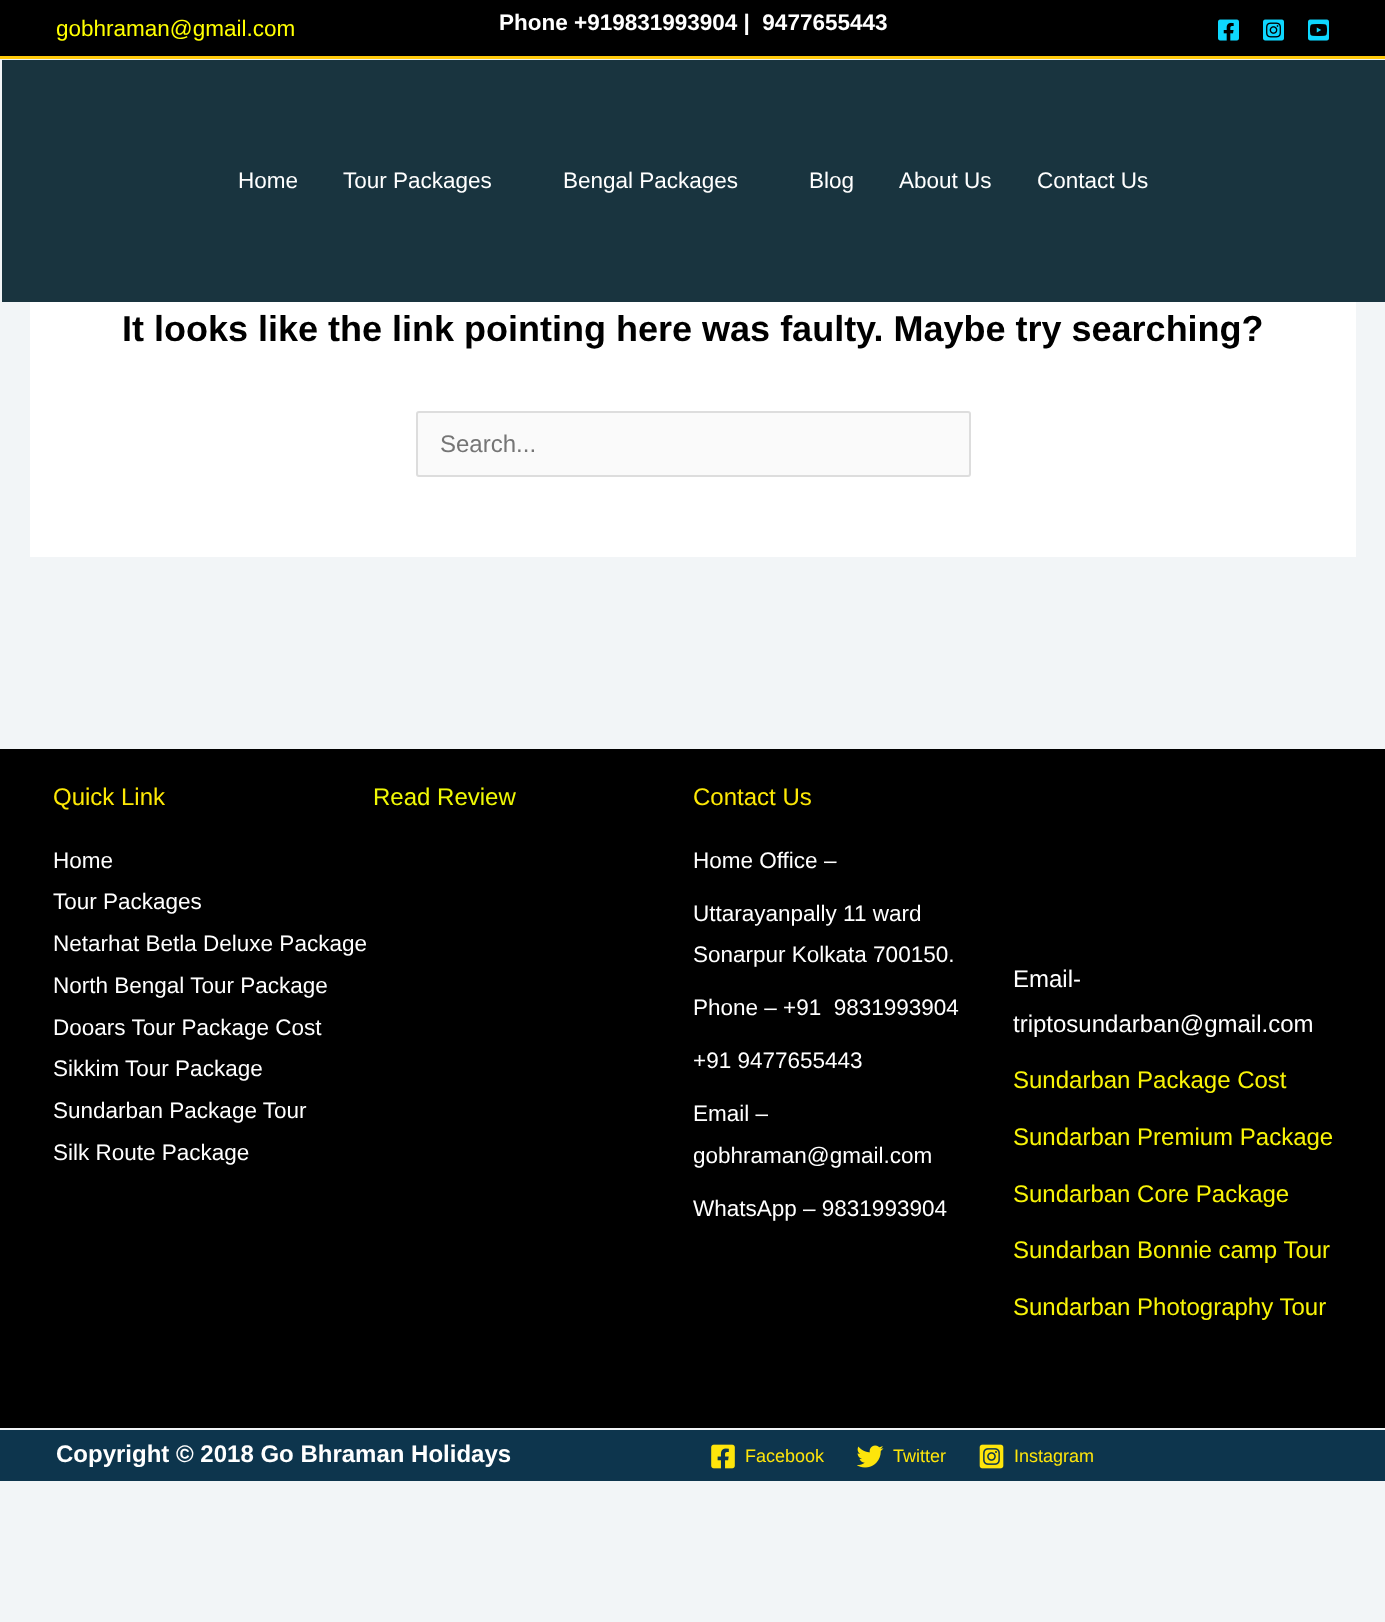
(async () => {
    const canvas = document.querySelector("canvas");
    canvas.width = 1385;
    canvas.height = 1622;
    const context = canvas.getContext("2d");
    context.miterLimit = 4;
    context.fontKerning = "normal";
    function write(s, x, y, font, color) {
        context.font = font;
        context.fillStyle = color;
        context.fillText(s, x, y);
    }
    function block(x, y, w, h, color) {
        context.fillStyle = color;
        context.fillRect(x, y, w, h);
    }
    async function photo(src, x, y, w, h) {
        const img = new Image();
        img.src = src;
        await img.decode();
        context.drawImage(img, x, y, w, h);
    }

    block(0, 0, 1385, 1622, "rgb(242, 245, 247)");
    block(0, 0, 1385, 56, "rgb(0, 0, 0)");
    block(0, 56, 1385, 3, "rgb(255, 202, 11)");
    write("gobhraman@gmail.com", 56, 36, "22.5px Liberation Sans", "rgb(255, 255, 0)");
    write("Phone +919831993904 |  9477655443", 499, 30, "bold 22.5px Liberation Sans", "rgb(255, 255, 255)");
    await photo("media/1.png", 1218, 19, 21, 22);
    await photo("media/2.png", 1263, 19, 21, 22);
    await photo("media/3.png", 1308, 19, 21, 22);
    block(2, 60, 1383, 242, "rgb(25, 52, 63)");
    write("Home", 238, 188, "22.5px Liberation Sans", "rgb(255, 255, 255)");
    write("Tour Packages", 343, 188, "22.5px Liberation Sans", "rgb(255, 255, 255)");
    write("Bengal Packages", 563, 188, "22.5px Liberation Sans", "rgb(255, 255, 255)");
    write("Blog", 809, 188, "22.5px Liberation Sans", "rgb(255, 255, 255)");
    write("About Us", 899, 188, "22.5px Liberation Sans", "rgb(255, 255, 255)");
    write("Contact Us", 1037, 188, "22.5px Liberation Sans", "rgb(255, 255, 255)");
    block(30, 302, 1326, 255, "rgb(255, 255, 255)");
    write("It looks like the link pointing here was faulty. Maybe try searching?", 122, 341, "bold 36px Liberation Sans", "rgb(0, 0, 0)");
    context.fillStyle = "rgb(250, 250, 250)";
    context.beginPath();
    context.roundRect(417, 412, 553, 64, 2);
    context.fill();
    context.strokeStyle = "rgb(221, 221, 221)";
    context.lineWidth = 2;
    context.stroke();
    write("Search...", 440, 452, "24px Liberation Sans", "rgb(117, 117, 117)");
    block(0, 749, 1385, 679, "rgb(0, 0, 0)");
    write("Quick Link", 53, 805, "24px Liberation Sans", "rgb(253, 232, 5)");
    write("Home", 53, 868, "22.5px Liberation Sans", "rgb(255, 255, 255)");
    write("Tour Packages", 53, 909, "22.5px Liberation Sans", "rgb(255, 255, 255)");
    write("Netarhat Betla Deluxe Package", 53, 951, "22.5px Liberation Sans", "rgb(255, 255, 255)");
    write("North Bengal Tour Package", 53, 993, "22.5px Liberation Sans", "rgb(255, 255, 255)");
    write("Dooars Tour Package Cost", 53, 1035, "22.5px Liberation Sans", "rgb(255, 255, 255)");
    write("Sikkim Tour Package", 53, 1076, "22.5px Liberation Sans", "rgb(255, 255, 255)");
    write("Sundarban Package Tour", 53, 1118, "22.5px Liberation Sans", "rgb(255, 255, 255)");
    write("Silk Route Package", 53, 1160, "22.5px Liberation Sans", "rgb(255, 255, 255)");
    write("Read Review", 373, 805, "24px Liberation Sans", "rgb(240, 248, 5)");
    write("Contact Us", 693, 805, "24px Liberation Sans", "rgb(253, 232, 5)");
    write("Home Office –", 693, 868, "22.5px Liberation Sans", "rgb(255, 255, 255)");
    write("Uttarayanpally 11 ward", 693, 921, "22.5px Liberation Sans", "rgb(255, 255, 255)");
    write("Sonarpur Kolkata 700150.", 693, 962, "22.5px Liberation Sans", "rgb(255, 255, 255)");
    write("Phone – +91  9831993904", 693, 1015, "22.5px Liberation Sans", "rgb(255, 255, 255)");
    write("+91 9477655443", 693, 1068, "22.5px Liberation Sans", "rgb(255, 255, 255)");
    write("Email –", 693, 1121, "22.5px Liberation Sans", "rgb(255, 255, 255)");
    write("gobhraman@gmail.com", 693, 1163, "22.5px Liberation Sans", "rgb(255, 255, 255)");
    write("WhatsApp – 9831993904", 693, 1216, "22.5px Liberation Sans", "rgb(255, 255, 255)");
    write("Email-", 1013, 987, "24px Liberation Sans", "rgb(255, 255, 255)");
    write("triptosundarban@gmail.com", 1013, 1032, "24px Liberation Sans", "rgb(255, 255, 255)");
    write("Sundarban Package Cost", 1013, 1088, "24px Liberation Sans", "rgb(249, 244, 7)");
    write("Sundarban Premium Package", 1013, 1145, "24px Liberation Sans", "rgb(249, 244, 7)");
    write("Sundarban Core Package", 1013, 1202, "24px Liberation Sans", "rgb(249, 244, 7)");
    write("Sundarban Bonnie camp Tour", 1013, 1258, "24px Liberation Sans", "rgb(249, 244, 7)");
    write("Sundarban Photography Tour", 1013, 1315, "24px Liberation Sans", "rgb(249, 244, 7)");
    block(0, 1430, 1385, 51, "rgb(13, 53, 77)");
    write("Copyright © 2018 Go Bhraman Holidays", 56, 1462, "bold 24px Liberation Sans", "rgb(255, 255, 255)");
    await photo("media/4.png", 711, 1444, 24, 25);
    write("Facebook", 745, 1462, "18px Liberation Sans", "rgb(254, 229, 11)");
    await photo("media/5.png", 857, 1445, 27, 23);
    write("Twitter", 893, 1462, "18px Liberation Sans", "rgb(254, 229, 11)");
    await photo("media/6.png", 979, 1444, 25, 25);
    write("Instagram", 1014, 1462, "18px Liberation Sans", "rgb(254, 229, 11)");
})();
